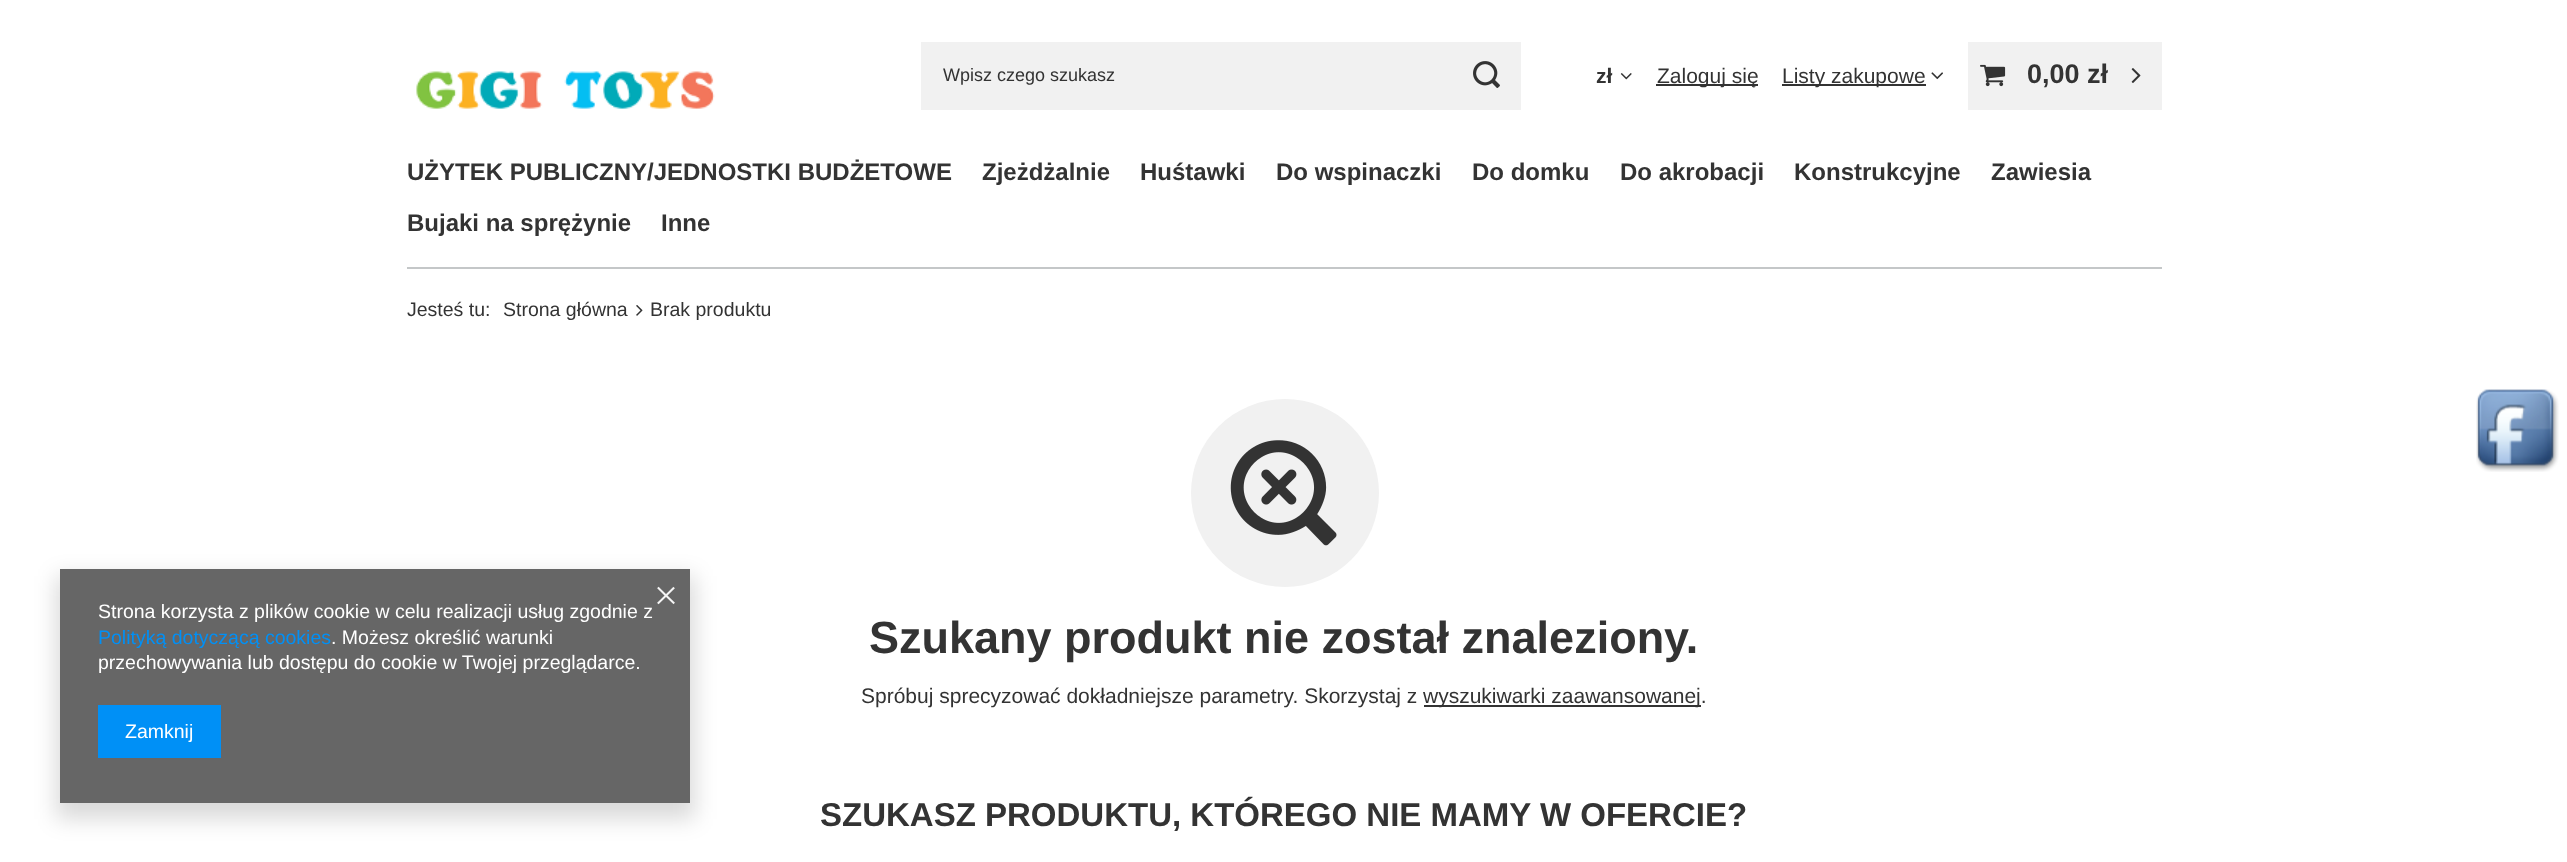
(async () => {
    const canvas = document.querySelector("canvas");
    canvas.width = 2567;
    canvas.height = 862;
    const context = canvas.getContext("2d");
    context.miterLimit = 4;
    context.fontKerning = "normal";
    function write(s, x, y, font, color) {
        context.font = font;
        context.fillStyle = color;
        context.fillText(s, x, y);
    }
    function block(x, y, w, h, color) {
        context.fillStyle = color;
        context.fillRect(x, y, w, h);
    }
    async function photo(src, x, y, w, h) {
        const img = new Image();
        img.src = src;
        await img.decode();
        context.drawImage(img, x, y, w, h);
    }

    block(0, 0, 2567, 862, "rgb(255, 255, 255)");
    await photo("media/1.png", 416, 71, 299, 38);
    block(921, 42, 600, 68, "rgb(241, 241, 241)");
    write("Wpisz czego szukasz", 943, 81, "18px Liberation Sans", "rgb(51, 51, 51)");
    await photo("media/2.png", 1473, 61, 27, 27);
    write("zł", 1596, 83, "bold 21px Liberation Sans", "rgb(51, 51, 51)");
    await photo("media/3.png", 1620, 73, 12, 7);
    block(1656, 84, 102, 2, "rgb(51, 51, 51)");
    write("Zaloguj się", 1657, 83, "21px Liberation Sans", "rgb(51, 51, 51)");
    block(1782, 84, 144, 2, "rgb(51, 51, 51)");
    write("Listy zakupowe", 1782, 83, "21px Liberation Sans", "rgb(51, 51, 51)");
    await photo("media/4.png", 1931, 72, 12, 8);
    block(1968, 42, 194, 68, "rgb(241, 241, 241)");
    await photo("media/5.png", 1980, 64, 26, 23);
    write("0,00 zł", 2027, 83, "bold 27px Liberation Sans", "rgb(51, 51, 51)");
    await photo("media/6.png", 2131, 68, 10, 15);
    block(407, 267, 1755, 2, "rgb(196, 199, 200)");
    write("UŻYTEK PUBLICZNY/JEDNOSTKI BUDŻETOWE", 407, 180, "bold 24px Liberation Sans", "rgb(51, 51, 51)");
    write("Zjeżdżalnie", 982, 180, "bold 24px Liberation Sans", "rgb(51, 51, 51)");
    write("Huśtawki", 1140, 180, "bold 24px Liberation Sans", "rgb(51, 51, 51)");
    write("Do wspinaczki", 1276, 180, "bold 24px Liberation Sans", "rgb(51, 51, 51)");
    write("Do domku", 1472, 180, "bold 24px Liberation Sans", "rgb(51, 51, 51)");
    write("Do akrobacji", 1620, 180, "bold 24px Liberation Sans", "rgb(51, 51, 51)");
    write("Konstrukcyjne", 1794, 180, "bold 24px Liberation Sans", "rgb(51, 51, 51)");
    write("Zawiesia", 1991, 180, "bold 24px Liberation Sans", "rgb(51, 51, 51)");
    write("Bujaki na sprężynie", 407, 231, "bold 24px Liberation Sans", "rgb(51, 51, 51)");
    write("Inne", 661, 231, "bold 24px Liberation Sans", "rgb(51, 51, 51)");
    write("Jesteś tu:", 407, 316, "19.5px Liberation Sans", "rgb(51, 51, 51)");
    write("Strona główna", 503, 316, "19.5px Liberation Sans", "rgb(51, 51, 51)");
    await photo("media/7.png", 636, 305, 7, 11);
    write("Brak produktu", 650, 316, "19.5px Liberation Sans", "rgb(51, 51, 51)");
    context.fillStyle = "rgb(241, 241, 241)";
    context.beginPath();
    context.arc(1285, 493, 94, 0, Math.PI * 2);
    context.fill();
    await photo("media/8.png", 1230, 440, 107, 106);
    write("Szukany produkt nie został znaleziony.", 869, 653, "bold 45px Liberation Sans", "rgb(51, 51, 51)");
    write("Spróbuj sprecyzować dokładniejsze parametry. Skorzystaj z", 861, 703, "21px Liberation Sans", "rgb(51, 51, 51)");
    block(1424, 705, 277, 2, "rgb(51, 51, 51)");
    write("wyszukiwarki zaawansowanej.", 1423, 703, "21px Liberation Sans", "rgb(51, 51, 51)");
    write("SZUKASZ PRODUKTU, KTÓREGO NIE MAMY W OFERCIE?", 820, 826, "bold 33px Liberation Sans", "rgb(51, 51, 51)");
    await photo("media/9.png", 2476, 389, 83, 83);
    context.save();
    context.beginPath();
    context.moveTo(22, 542);
    context.lineTo(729, 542);
    context.lineTo(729, 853);
    context.lineTo(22, 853);
    context.closePath();
    context.moveTo(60, 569);
    context.lineTo(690, 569);
    context.lineTo(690, 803);
    context.lineTo(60, 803);
    context.closePath();
    context.clip("evenodd");
    context.fillStyle = "rgba(0, 0, 0, 0.15)";
    context.filter = "blur(11px)";
    context.beginPath();
    context.rect(56, 576, 639, 243);
    context.fill();
    context.filter = "none";
    context.restore();
    block(60, 569, 630, 234, "rgba(0, 0, 0, 0.6)");
    await photo("media/10.png", 657, 586, 18, 19);
    write("Strona korzysta z plików cookie w celu realizacji usług zgodnie z", 98, 618, "19.5px Liberation Sans", "rgb(255, 255, 255)");
    write("Polityką dotyczącą cookies", 98, 644, "19.5px Liberation Sans", "rgb(0, 144, 246)");
    write(". Możesz określić warunki", 331, 644, "19.5px Liberation Sans", "rgb(255, 255, 255)");
    write("przechowywania lub dostępu do cookie w Twojej przeglądarce.", 98, 669, "19.5px Liberation Sans", "rgb(255, 255, 255)");
    block(98, 705, 123, 53, "rgb(0, 144, 246)");
    write("Zamknij", 125, 738, "19.5px Liberation Sans", "rgb(255, 255, 255)");
})();
